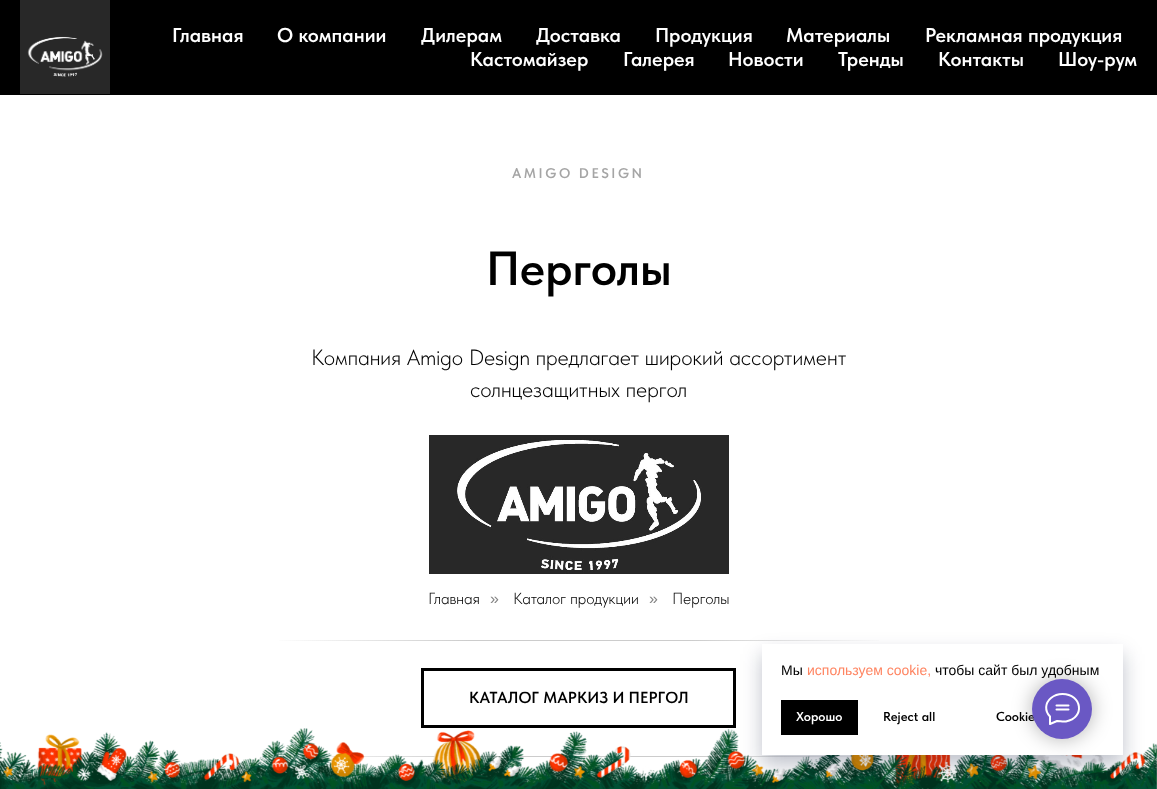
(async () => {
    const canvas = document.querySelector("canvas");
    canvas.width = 1157;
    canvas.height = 789;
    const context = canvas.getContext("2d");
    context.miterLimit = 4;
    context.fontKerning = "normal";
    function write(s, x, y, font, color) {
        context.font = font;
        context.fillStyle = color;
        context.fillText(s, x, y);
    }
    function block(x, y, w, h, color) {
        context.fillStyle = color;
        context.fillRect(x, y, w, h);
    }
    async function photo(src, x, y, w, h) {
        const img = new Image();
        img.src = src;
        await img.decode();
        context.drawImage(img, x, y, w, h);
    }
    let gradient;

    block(0, 0, 1157, 789, "rgb(255, 255, 255)");
    block(0, 0, 1157, 95, "rgb(0, 0, 0)");
    await photo("media/1.png", 20, 0, 90, 94);
    write("Главная", 172, 42, "600 20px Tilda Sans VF", "rgb(255, 255, 255)");
    write("О компании", 277, 42, "600 20px Tilda Sans VF", "rgb(255, 255, 255)");
    write("Дилерам", 421, 42, "600 20px Tilda Sans VF", "rgb(255, 255, 255)");
    write("Доставка", 536, 42, "600 20px Tilda Sans VF", "rgb(255, 255, 255)");
    write("Продукция", 655, 42, "600 20px Tilda Sans VF", "rgb(255, 255, 255)");
    write("Материалы", 786, 42, "600 20px Tilda Sans VF", "rgb(255, 255, 255)");
    write("Рекламная продукция", 925, 42, "600 20px Tilda Sans VF", "rgb(255, 255, 255)");
    write("Кастомайзер", 470, 66, "600 20px Tilda Sans VF", "rgb(255, 255, 255)");
    write("Галерея", 623, 66, "600 20px Tilda Sans VF", "rgb(255, 255, 255)");
    write("Новости", 728, 66, "600 20px Tilda Sans VF", "rgb(255, 255, 255)");
    write("Тренды", 838, 66, "600 20px Tilda Sans VF", "rgb(255, 255, 255)");
    write("Контакты", 938, 66, "600 20px Tilda Sans VF", "rgb(255, 255, 255)");
    write("Шоу-рум", 1058, 66, "600 20px Tilda Sans VF", "rgb(255, 255, 255)");
    context.letterSpacing = "2.5px";
    write("AMIGO DESIGN", 512, 178, "600 14px Tilda Sans VF", "rgb(165, 165, 165)");
    context.letterSpacing = "0px";
    write("Перголы", 486, 285, "600 48px Tilda Sans VF", "rgb(0, 0, 0)");
    write("Компания Amigo Design предлагает широкий ассортимент", 311, 365, "300 22px Tilda Sans VF", "rgb(0, 0, 0)");
    write("солнцезащитных пергол", 470, 397, "300 22px Tilda Sans VF", "rgb(0, 0, 0)");
    await photo("media/2.png", 429, 435, 300, 139);
    write("Главная", 428, 604, "300 16px Tilda Sans VF", "rgb(0, 0, 0)");
    write("»", 490, 604, "16px Liberation Sans", "rgb(133, 133, 133)");
    write("Каталог продукции", 513, 604, "300 16px Tilda Sans VF", "rgb(0, 0, 0)");
    write("»", 649, 604, "16px Liberation Sans", "rgb(133, 133, 133)");
    write("Перголы", 672, 604, "300 16px Tilda Sans VF", "rgb(0, 0, 0)");
    gradient = context.createLinearGradient(469, 641, 269, 641);
    gradient.addColorStop(0, "rgb(204, 204, 204)");
    gradient.addColorStop(1, "rgb(255, 255, 255)");
    context.fillStyle = gradient;
    context.fillRect(279, 640, 190, 1);
    block(469, 640, 220, 1, "rgb(204, 204, 204)");
    gradient = context.createLinearGradient(689, 641, 889, 641);
    gradient.addColorStop(0, "rgb(204, 204, 204)");
    gradient.addColorStop(1, "rgb(255, 255, 255)");
    context.fillStyle = gradient;
    context.fillRect(689, 640, 190, 1);
    context.strokeStyle = "rgb(0, 0, 0)";
    context.lineWidth = 3;
    context.strokeRect(422.5, 669.5, 312, 57);
    write("КАТАЛОГ МАРКИЗ И ПЕРГОЛ", 469, 703, "600 16px Tilda Sans VF", "rgb(0, 0, 0)");
    gradient = context.createLinearGradient(469, 757, 269, 757);
    gradient.addColorStop(0, "rgb(204, 204, 204)");
    gradient.addColorStop(1, "rgb(255, 255, 255)");
    context.fillStyle = gradient;
    context.fillRect(279, 756, 156, 1);
    block(478, 756, 211, 1, "rgb(204, 204, 204)");
    gradient = context.createLinearGradient(689, 757, 889, 757);
    gradient.addColorStop(0, "rgb(204, 204, 204)");
    gradient.addColorStop(1, "rgb(255, 255, 255)");
    context.fillStyle = gradient;
    context.fillRect(689, 756, 190, 1);
    await photo("media/3.png", 0, 728, 1157, 61);
    context.fillStyle = "rgba(0, 11, 48, 0.25)";
    context.filter = "blur(10px)";
    context.beginPath();
    context.rect(762, 654, 361, 111);
    context.fill();
    context.filter = "none";
    block(762, 644, 361, 111, "rgb(255, 255, 255)");
    context.fillStyle = "rgba(0, 0, 0, 0.3)";
    context.filter = "blur(10px)";
    context.beginPath();
    context.roundRect(1032, 679, 60, 60, 30);
    context.fill();
    context.filter = "none";
    write("Cookie", 996, 721, "600 13px Tilda Sans VF", "rgb(0, 0, 0)");
    context.fillStyle = "rgb(106, 88, 196)";
    context.beginPath();
    context.arc(1062, 709, 30, 0, Math.PI * 2);
    context.fill();
    context.beginPath();
    context.moveTo(1056.5, 705.5);
    context.lineTo(1068.5, 705.5);
    context.moveTo(1056.5, 709.5);
    context.lineTo(1068.5, 709.5);
    context.moveTo(1050, 716.5);
    context.bezierCurveTo(1044.5, 711, 1045, 703, 1051, 698);
    context.bezierCurveTo(1054, 695.5, 1058.5, 694, 1062.5, 694);
    context.bezierCurveTo(1082, 694, 1085.5, 718, 1066, 721.5);
    context.bezierCurveTo(1062, 722, 1060.5, 721, 1057, 721);
    context.lineTo(1050, 724);
    context.lineTo(1050, 717);
    context.closePath();
    context.strokeStyle = "rgb(255, 255, 255)";
    context.lineWidth = 2;
    context.lineCap = "round";
    context.lineJoin = "round";
    context.stroke();
    write("Мы", 781, 675, "14px Liberation Sans", "rgb(0, 0, 0)");
    write("используем cookie,", 807, 675, "14px Liberation Sans", "rgb(255, 133, 98)");
    write("чтобы сайт был удобным", 935, 675, "14px Liberation Sans", "rgb(0, 0, 0)");
    block(781, 700, 77, 35, "rgb(0, 0, 0)");
    write("Хорошо", 796, 721, "600 13px Tilda Sans VF", "rgb(255, 255, 255)");
    write("Reject all", 883, 721, "600 13px Tilda Sans VF", "rgb(0, 0, 0)");
})();
